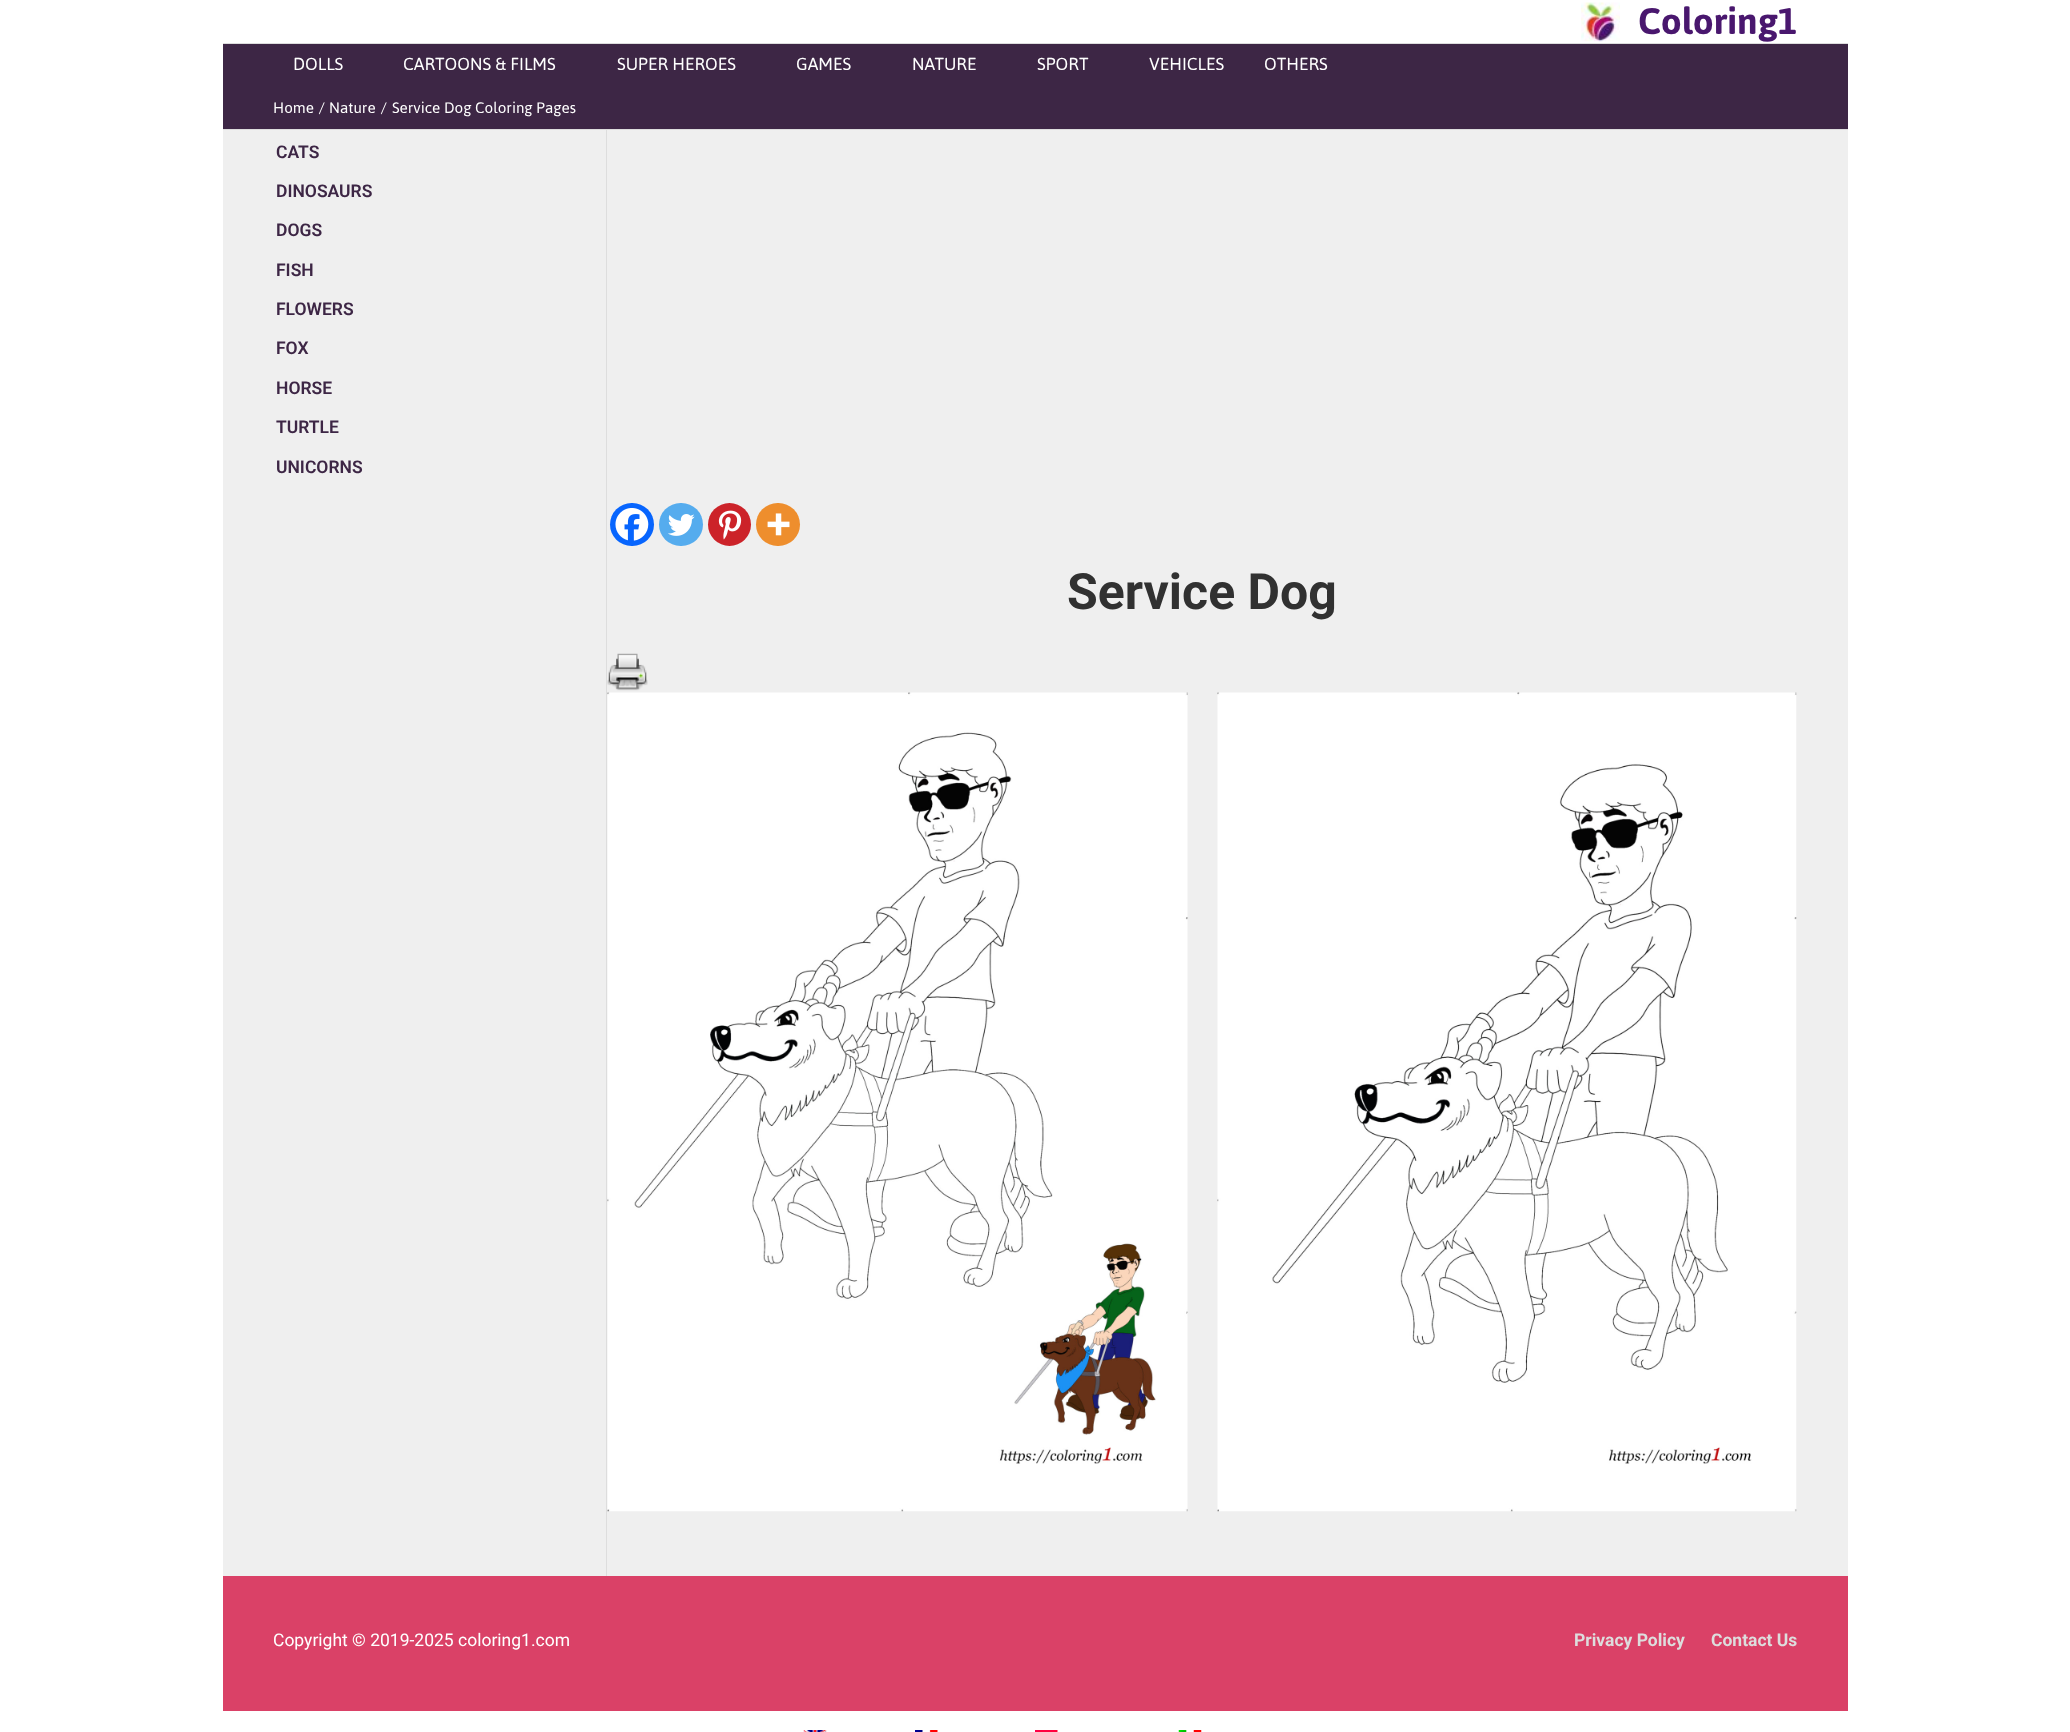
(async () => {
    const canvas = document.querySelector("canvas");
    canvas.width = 2070;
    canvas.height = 1732;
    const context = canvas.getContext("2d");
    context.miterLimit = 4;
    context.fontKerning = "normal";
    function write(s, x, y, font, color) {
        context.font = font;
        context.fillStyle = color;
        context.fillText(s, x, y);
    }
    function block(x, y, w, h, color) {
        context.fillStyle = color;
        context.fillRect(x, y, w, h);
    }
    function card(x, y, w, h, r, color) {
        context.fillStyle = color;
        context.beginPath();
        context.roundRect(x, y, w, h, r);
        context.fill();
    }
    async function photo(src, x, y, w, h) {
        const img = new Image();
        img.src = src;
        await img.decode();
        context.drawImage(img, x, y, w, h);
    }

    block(0, 0, 2070, 1732, "rgb(255, 255, 255)");
    block(223, 43, 1625, 1, "rgb(221, 221, 221)");
    await photo("media/1.png", 1581, 2, 39, 40);
    write("Coloring1", 1638, 34, "bold 42.5px Jaldi", "rgb(73, 23, 110)");
    block(223, 44, 1625, 85, "rgb(61, 38, 69)");
    write("DOLLS", 293, 70, "20px Jaldi", "rgb(255, 255, 255)");
    write("CARTOONS & FILMS", 403, 70, "20px Jaldi", "rgb(255, 255, 255)");
    write("SUPER HEROES", 617, 70, "20px Jaldi", "rgb(255, 255, 255)");
    write("GAMES", 796, 70, "20px Jaldi", "rgb(255, 255, 255)");
    write("NATURE", 912, 70, "20px Jaldi", "rgb(255, 255, 255)");
    write("SPORT", 1037, 70, "20px Jaldi", "rgb(255, 255, 255)");
    write("VEHICLES", 1149, 70, "20px Jaldi", "rgb(255, 255, 255)");
    write("OTHERS", 1264, 70, "20px Jaldi", "rgb(255, 255, 255)");
    block(223, 129, 1625, 1, "rgb(221, 221, 221)");
    write("Home", 273, 113, "17.5px Jaldi", "rgb(255, 255, 255)");
    write("/", 319, 113, "17.5px Jaldi", "rgb(255, 255, 255)");
    write("Nature", 329, 113, "17.5px Jaldi", "rgb(255, 255, 255)");
    write("/", 381, 113, "17.5px Jaldi", "rgb(255, 255, 255)");
    write("Service Dog Coloring Pages", 392, 113, "17.5px Jaldi", "rgb(255, 255, 255)");
    block(223, 130, 1625, 1446, "rgb(239, 239, 239)");
    write("CATS", 276, 158, "600 17.5px Roboto", "rgb(61, 38, 69)");
    write("DINOSAURS", 276, 197, "600 17.5px Roboto", "rgb(61, 38, 69)");
    write("DOGS", 276, 236, "600 17.5px Roboto", "rgb(61, 38, 69)");
    write("FISH", 276, 276, "600 17.5px Roboto", "rgb(61, 38, 69)");
    write("FLOWERS", 276, 315, "600 17.5px Roboto", "rgb(61, 38, 69)");
    write("FOX", 276, 354, "600 17.5px Roboto", "rgb(61, 38, 69)");
    write("HORSE", 276, 394, "600 17.5px Roboto", "rgb(61, 38, 69)");
    write("TURTLE", 276, 433, "600 17.5px Roboto", "rgb(61, 38, 69)");
    write("UNICORNS", 276, 473, "600 17.5px Roboto", "rgb(61, 38, 69)");
    block(606, 130, 1, 1446, "rgb(221, 221, 221)");
    card(610, 503, 44, 43, 21.5, "rgb(7, 101, 254)");
    await photo("media/2.png", 615, 508, 34, 33);
    card(659, 503, 44, 43, 21.5, "rgb(85, 172, 238)");
    await photo("media/3.png", 668, 514, 27, 22);
    context.fillStyle = "rgb(204, 35, 41)";
    context.beginPath();
    context.arc(729.5, 524.5, 21.5, 0, Math.PI * 2);
    context.fill();
    await photo("media/4.png", 718, 510, 24, 30);
    card(756, 503, 44, 43, 21.5, "rgb(238, 142, 45)");
    await photo("media/5.png", 767, 513, 23, 23);
    write("Service Dog", 1067, 609, "bold 50px Roboto", "rgb(49, 49, 49)");
    await photo("media/6.png", 607, 653, 41, 38);
    await photo("media/7.png", 607, 692, 581, 820);
    await photo("media/8.png", 1217, 692, 580, 820);
    block(223, 1576, 1625, 135, "rgb(218, 65, 103)");
    write("Copyright © 2019-2025 coloring1.com", 273, 1646, "17.5px Roboto", "rgb(255, 255, 255)");
    write("Privacy Policy", 1574, 1646, "bold 17.5px Roboto", "rgb(221, 221, 221)");
    write("Contact Us", 1711, 1646, "bold 17.5px Roboto", "rgb(221, 221, 221)");
    await photo("media/9.png", 803, 1730, 24, 2);
    await photo("media/10.png", 915, 1730, 23, 2);
    await photo("media/11.png", 1035, 1730, 23, 2);
    await photo("media/12.png", 1178, 1730, 24, 2);
})();
